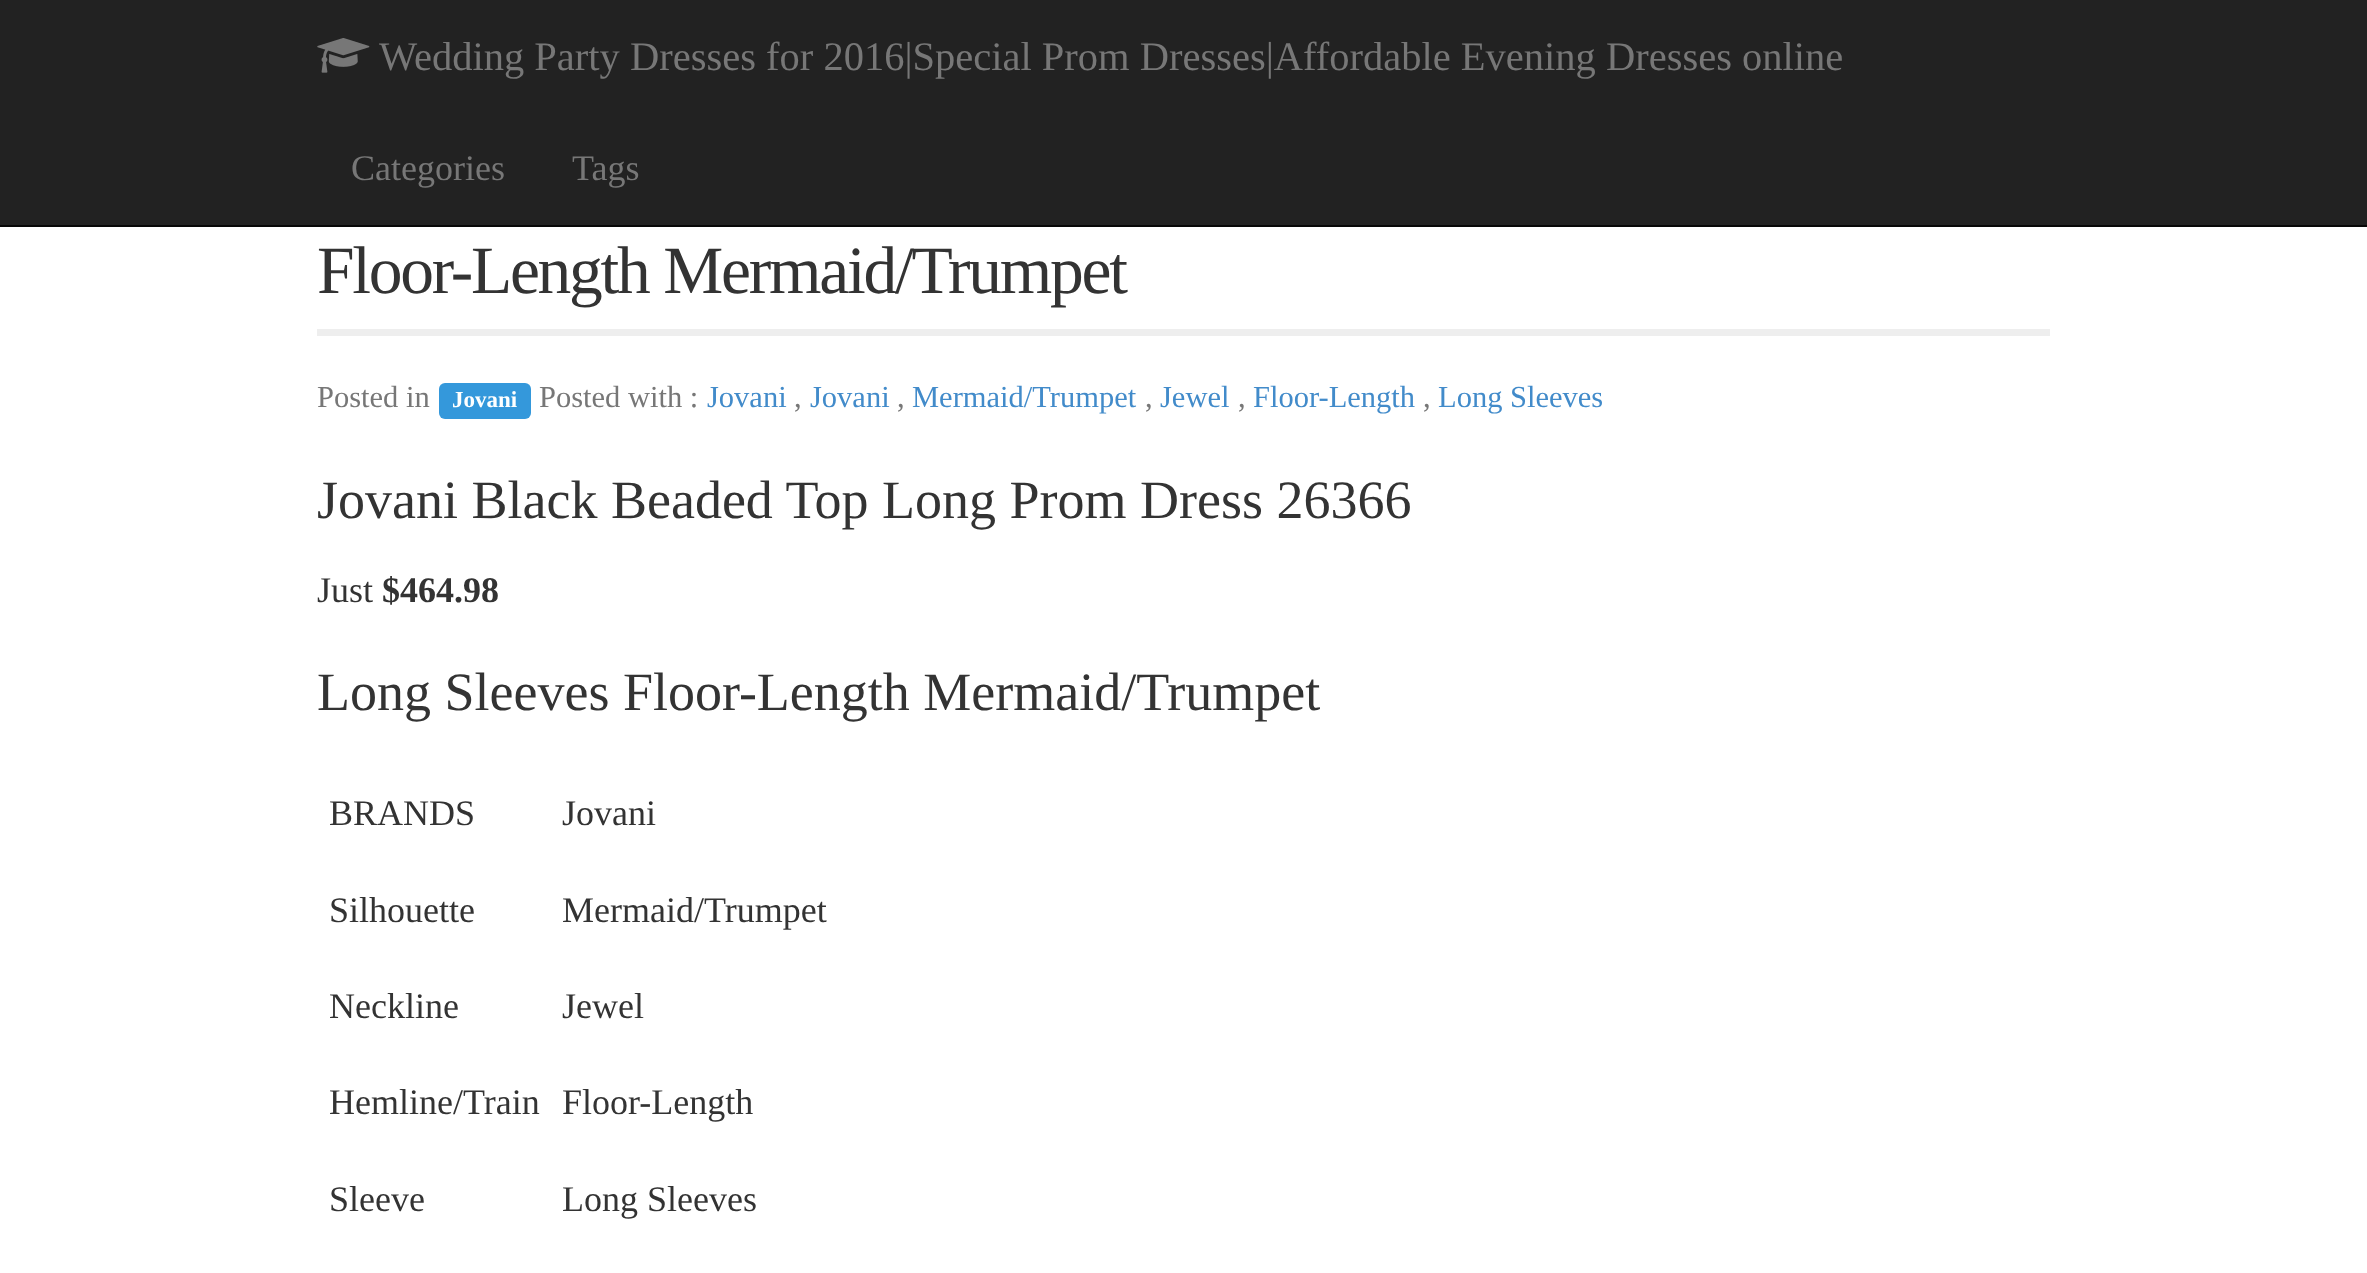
(async () => {
    const canvas = document.querySelector("canvas");
    canvas.width = 2367;
    canvas.height = 1273;
    const context = canvas.getContext("2d");
    context.miterLimit = 4;
    context.fontKerning = "normal";
    function write(s, x, y, font, color) {
        context.font = font;
        context.fillStyle = color;
        context.fillText(s, x, y);
    }
    function block(x, y, w, h, color) {
        context.fillStyle = color;
        context.fillRect(x, y, w, h);
    }
    function card(x, y, w, h, r, color) {
        context.fillStyle = color;
        context.beginPath();
        context.roundRect(x, y, w, h, r);
        context.fill();
    }
    async function photo(src, x, y, w, h) {
        const img = new Image();
        img.src = src;
        await img.decode();
        context.drawImage(img, x, y, w, h);
    }

    block(0, 0, 2367, 1273, "rgb(255, 255, 255)");
    block(0, 0, 2367, 225, "rgb(34, 34, 34)");
    block(0, 225, 2367, 2, "rgb(8, 8, 8)");
    await photo("media/1.png", 317, 38, 53, 35);
    write("Wedding Party Dresses for 2016|Special Prom Dresses|Affordable Evening Dresses online", 379, 70, "40.5px Liberation Serif", "rgb(119, 119, 119)");
    write("Categories", 351, 180, "36px Liberation Serif", "rgb(119, 119, 119)");
    write("Tags", 572, 180, "36px Liberation Serif", "rgb(119, 119, 119)");
    block(317, 329, 1733, 7, "rgb(238, 238, 238)");
    context.letterSpacing = "-2.25px";
    write("Floor-Length Mermaid/Trumpet", 317, 293, "67.5px Liberation Serif", "rgb(51, 51, 51)");
    context.letterSpacing = "0px";
    write("Posted in", 317, 407, "30.5px Liberation Serif", "rgb(119, 119, 119)");
    card(439, 383, 92, 36, 6, "rgb(52, 152, 219)");
    write("Jovani", 452, 407, "bold 23px Liberation Serif", "rgb(255, 255, 255)");
    write("Posted with :", 539, 407, "30.5px Liberation Serif", "rgb(119, 119, 119)");
    write("Jovani", 707, 407, "30.5px Liberation Serif", "rgb(66, 139, 202)");
    write(",", 794, 407, "30.5px Liberation Serif", "rgb(119, 119, 119)");
    write("Jovani", 810, 407, "30.5px Liberation Serif", "rgb(66, 139, 202)");
    write(",", 897, 407, "30.5px Liberation Serif", "rgb(119, 119, 119)");
    write("Mermaid/Trumpet", 912, 407, "30.5px Liberation Serif", "rgb(66, 139, 202)");
    write(",", 1145, 407, "30.5px Liberation Serif", "rgb(119, 119, 119)");
    write("Jewel", 1160, 407, "30.5px Liberation Serif", "rgb(66, 139, 202)");
    write(",", 1238, 407, "30.5px Liberation Serif", "rgb(119, 119, 119)");
    write("Floor-Length", 1253, 407, "30.5px Liberation Serif", "rgb(66, 139, 202)");
    write(",", 1423, 407, "30.5px Liberation Serif", "rgb(119, 119, 119)");
    write("Long Sleeves", 1438, 407, "30.5px Liberation Serif", "rgb(66, 139, 202)");
    write("Jovani Black Beaded Top Long Prom Dress 26366", 317, 518, "54px Liberation Serif", "rgb(51, 51, 51)");
    write("Just", 317, 602, "36px Liberation Serif", "rgb(51, 51, 51)");
    write("$464.98", 382, 602, "bold 36px Liberation Serif", "rgb(51, 51, 51)");
    write("Long Sleeves Floor-Length Mermaid/Trumpet", 317, 710, "54px Liberation Serif", "rgb(51, 51, 51)");
    write("BRANDS", 329, 825, "36px Liberation Serif", "rgb(51, 51, 51)");
    write("Jovani", 562, 825, "36px Liberation Serif", "rgb(51, 51, 51)");
    write("Silhouette", 329, 922, "36px Liberation Serif", "rgb(51, 51, 51)");
    write("Mermaid/Trumpet", 562, 922, "36px Liberation Serif", "rgb(51, 51, 51)");
    write("Neckline", 329, 1018, "36px Liberation Serif", "rgb(51, 51, 51)");
    write("Jewel", 562, 1018, "36px Liberation Serif", "rgb(51, 51, 51)");
    write("Hemline/Train", 329, 1114, "36px Liberation Serif", "rgb(51, 51, 51)");
    write("Floor-Length", 562, 1114, "36px Liberation Serif", "rgb(51, 51, 51)");
    write("Sleeve", 329, 1211, "36px Liberation Serif", "rgb(51, 51, 51)");
    write("Long Sleeves", 562, 1211, "36px Liberation Serif", "rgb(51, 51, 51)");
})();
